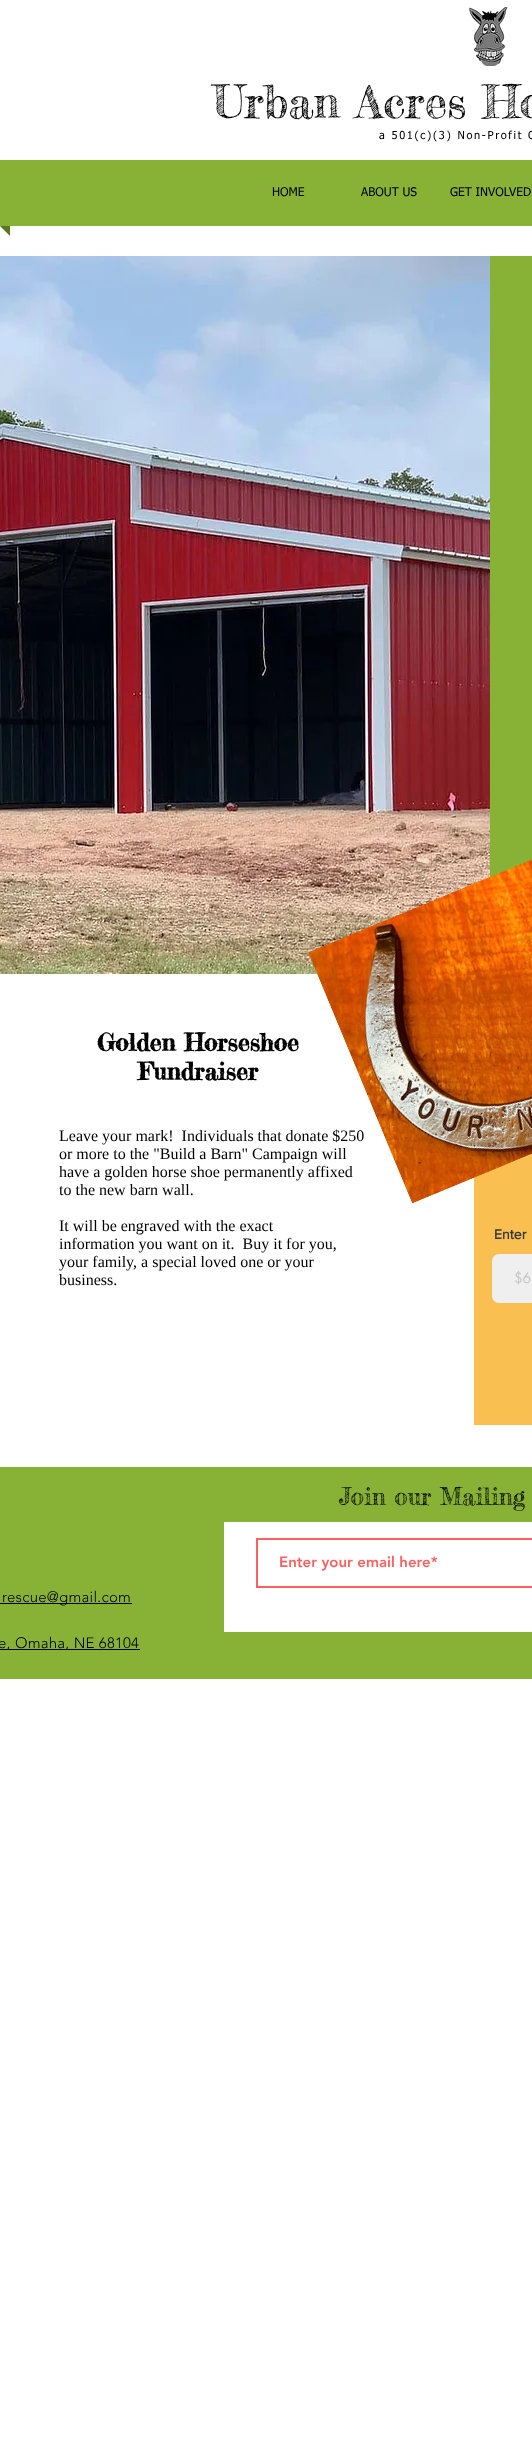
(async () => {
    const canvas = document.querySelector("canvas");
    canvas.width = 532;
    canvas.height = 2443;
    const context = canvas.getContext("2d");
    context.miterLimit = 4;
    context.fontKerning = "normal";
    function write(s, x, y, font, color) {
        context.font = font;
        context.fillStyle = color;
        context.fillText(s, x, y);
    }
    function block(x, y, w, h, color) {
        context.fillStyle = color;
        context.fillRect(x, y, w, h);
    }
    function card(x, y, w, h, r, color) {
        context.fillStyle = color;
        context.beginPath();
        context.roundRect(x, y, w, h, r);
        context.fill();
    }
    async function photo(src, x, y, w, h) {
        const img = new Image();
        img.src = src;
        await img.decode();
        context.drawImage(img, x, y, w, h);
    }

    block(0, 0, 532, 2443, "rgb(255, 255, 255)");
    await photo("media/1.png", 469, 7, 39, 59);
    write("Urban Acres Ho", 213, 118, "45px Fredericka the Great", "rgb(0, 0, 0)");
    context.letterSpacing = "1.65px";
    write("a 501(c)(3) Non-Profit O", 379, 139, "11px tahoma", "rgb(0, 0, 0)");
    block(0, 160, 532, 66, "rgb(136, 178, 53)");
    context.letterSpacing = "0px";
    write("HOME", 272, 196, "12px tahoma", "rgb(0, 0, 0)");
    write("ABOUT US", 361, 196, "12px tahoma", "rgb(0, 0, 0)");
    write("GET INVOLVED", 450, 196, "12px tahoma", "rgb(0, 0, 0)");
    context.fillStyle = "rgb(91, 118, 35)";
    context.beginPath();
    context.moveTo(0, 226);
    context.lineTo(10, 226);
    context.lineTo(10, 236);
    context.closePath();
    context.fill();
    await photo("media/2.png", 0, 256, 490, 718);
    block(490, 256, 42, 621, "rgb(136, 178, 53)");
    write("Golden Horseshoe", 97, 1051, "bold 24px Fredericka the Great", "rgb(0, 0, 0)");
    write("Fundraiser", 138, 1080, "bold 24px Fredericka the Great", "rgb(0, 0, 0)");
    write("Leave your mark!  Individuals that donate $250", 59, 1141, "16px Liberation Serif", "rgb(0, 0, 0)");
    write("or more to the \"Build a Barn\" Campaign will", 59, 1159, "16px Liberation Serif", "rgb(0, 0, 0)");
    write("have a golden horse shoe permanently affixed", 59, 1177, "16px Liberation Serif", "rgb(0, 0, 0)");
    block(474, 1153, 58, 272, "rgb(249, 191, 81)");
    await photo("media/3.png", 308, 859, 224, 345);
    write("to the new barn wall.", 59, 1195, "16px Liberation Serif", "rgb(0, 0, 0)");
    write("It will be engraved with the exact", 59, 1231, "16px Liberation Serif", "rgb(0, 0, 0)");
    write("information you want on it.  Buy it for you,", 59, 1249, "16px Liberation Serif", "rgb(0, 0, 0)");
    write("your family, a special loved one or your", 59, 1267, "16px Liberation Serif", "rgb(0, 0, 0)");
    write("business.", 59, 1285, "16px Liberation Serif", "rgb(0, 0, 0)");
    write("Enter", 494, 1239, "bold 14px 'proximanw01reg'", "rgb(57, 57, 57)");
    card(492, 1254, 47, 49, 7, "rgb(239, 239, 239)");
    write("$6", 514, 1283, "14px futura", "rgb(199, 199, 199)");
    block(0, 1467, 532, 212, "rgb(136, 178, 53)");
    write("Join our Mailing", 339, 1505, "24px Fredericka the Great", "rgb(0, 0, 0)");
    block(224, 1522, 308, 110, "rgb(255, 255, 255)");
    context.strokeStyle = "rgb(254, 96, 96)";
    context.lineWidth = 2;
    context.strokeRect(257, 1539, 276, 48);
    write("Enter your email here*", 279, 1567, "900 15px 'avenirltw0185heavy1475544'", "rgb(254, 96, 96)");
    block(0, 1603, 132, 1, "rgb(0, 0, 0)");
    context.letterSpacing = "0.25px";
    write("rescue@gmail.com", 2, 1602, "300 15px 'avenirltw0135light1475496'", "rgb(0, 0, 0)");
    block(0, 1649, 140, 1, "rgb(0, 0, 0)");
    write("e, Omaha, NE 68104", -2, 1648, "300 15px 'avenirltw0135light1475496'", "rgb(0, 0, 0)");
})();
